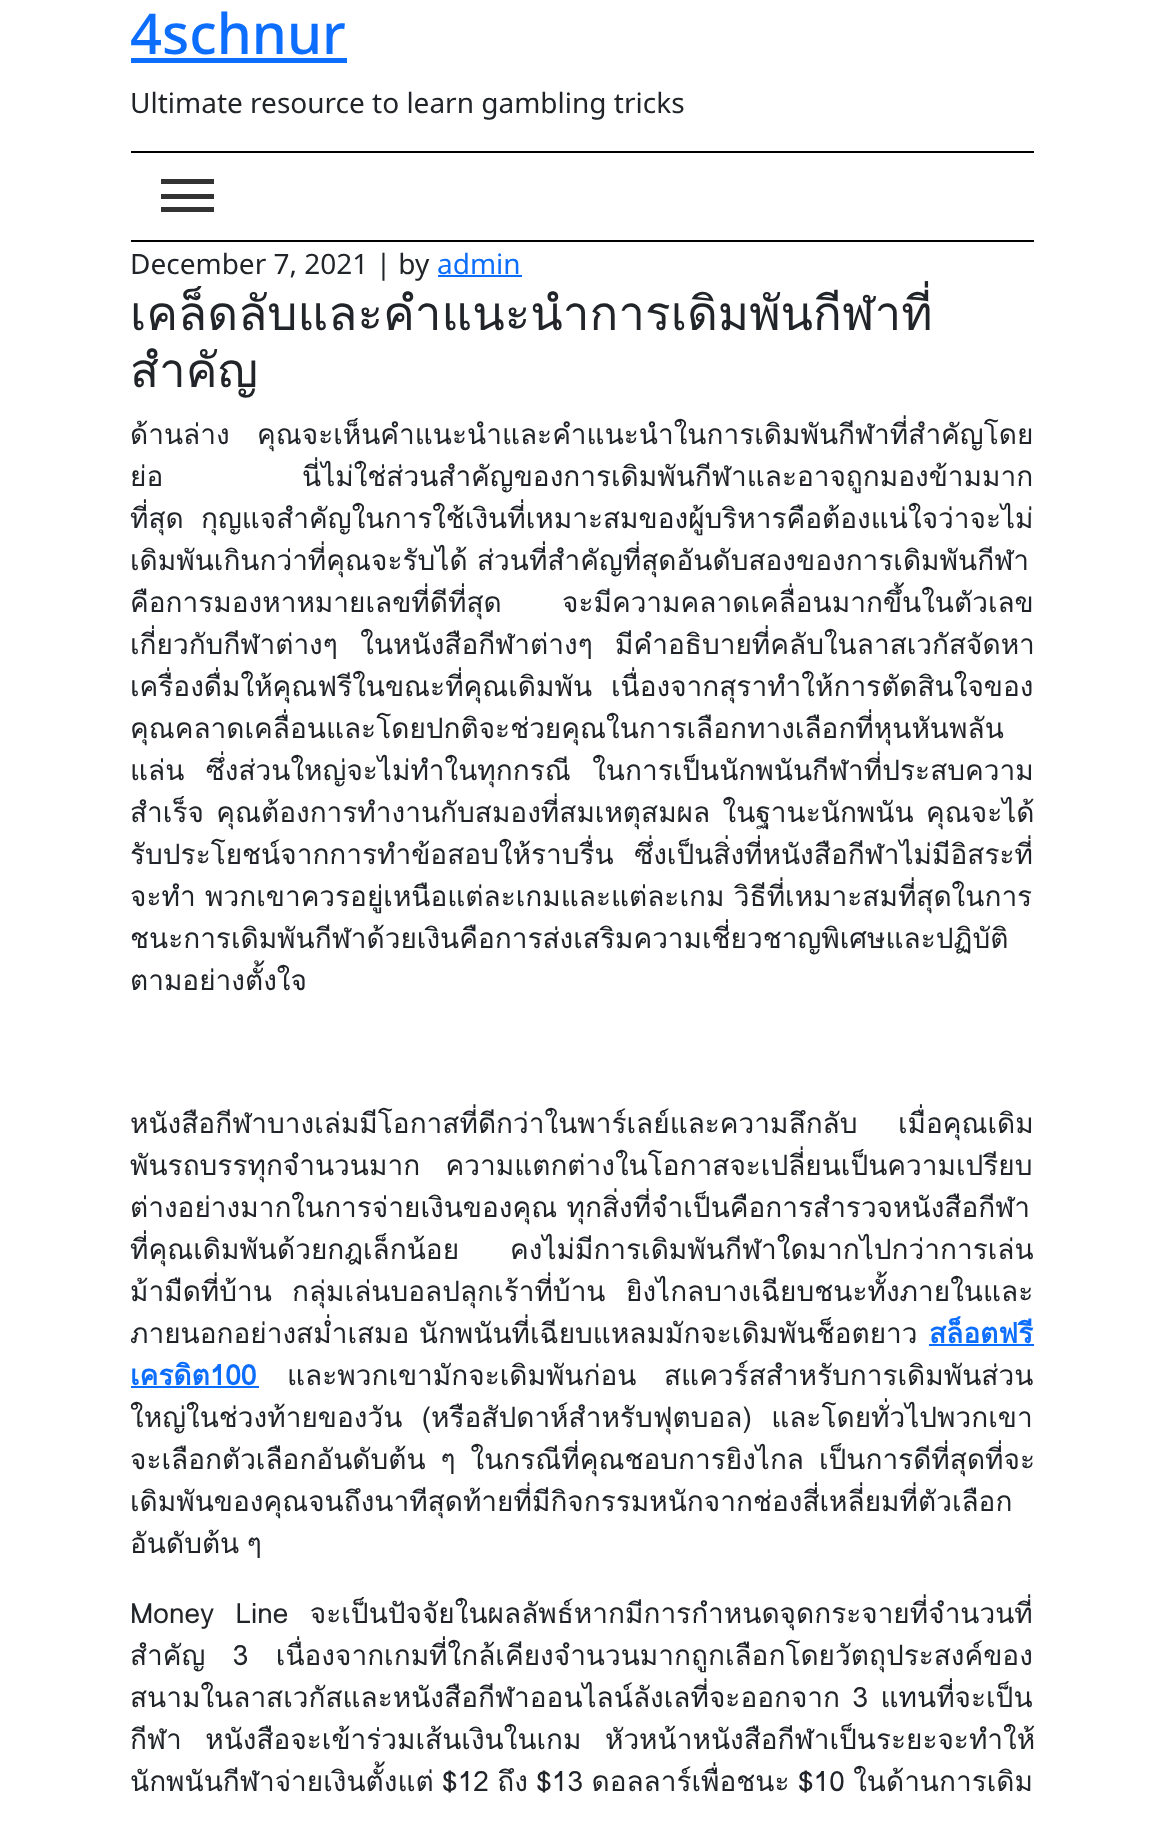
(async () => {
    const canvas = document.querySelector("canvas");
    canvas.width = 1163;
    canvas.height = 1821;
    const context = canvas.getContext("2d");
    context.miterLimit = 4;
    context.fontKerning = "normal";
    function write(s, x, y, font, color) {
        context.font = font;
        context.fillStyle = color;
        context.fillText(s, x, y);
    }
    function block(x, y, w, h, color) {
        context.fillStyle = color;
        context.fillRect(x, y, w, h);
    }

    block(0, 0, 1163, 1821, "rgb(255, 255, 255)");
    write("4schnur", 130, 54, "500 56px Noto Sans", "rgb(13, 110, 253)");
    block(131, 58, 216, 5, "rgb(13, 110, 253)");
    write("Ultimate resource to learn gambling tricks", 130, 113, "28px Noto Sans", "rgb(33, 37, 41)");
    block(131, 151, 903, 2, "rgb(0, 0, 0)");
    block(131, 240, 903, 2, "rgb(0, 0, 0)");
    block(161, 179, 53, 5, "rgb(51, 51, 51)");
    block(161, 194, 53, 5, "rgb(51, 51, 51)");
    block(161, 207, 53, 5, "rgb(51, 51, 51)");
    write("December 7, 2021 | by", 130, 274, "28px Noto Sans", "rgb(33, 37, 41)");
    write("admin", 437, 274, "28px Noto Sans", "rgb(13, 110, 253)");
    block(438, 275, 84, 2, "rgb(13, 110, 253)");
    write("เคล็ดลับและคำแนะนำการเดิมพันกีฬาที่", 130, 330, "47.6px Loma", "rgb(33, 37, 41)");
    write("สำคัญ", 130, 387, "47.6px Loma", "rgb(33, 37, 41)");
    context.wordSpacing = "18px";
    write("ด้านล่าง คุณจะเห็นคำแนะนำและคำแนะนำในการเดิมพันกีฬาที่สำคัญโดย", 130, 444, "28px Loma", "rgb(33, 37, 41)");
    context.wordSpacing = "0px";
    write("ย่อ", 130, 486, "28px Loma", "rgb(33, 37, 41)");
    write("นี่ไม่ใช่ส่วนสำคัญของการเดิมพันกีฬาและอาจถูกมองข้ามมาก", 302, 486, "28px Loma", "rgb(33, 37, 41)");
    write("ที่สุด", 130, 528, "28px Loma", "rgb(33, 37, 41)");
    write("กุญแจสำคัญในการใช้เงินที่เหมาะสมของผู้บริหารคือต้องแน่ใจว่าจะไม่", 201, 528, "28px Loma", "rgb(33, 37, 41)");
    write("เดิมพันเกินกว่าที่คุณจะรับได้ ส่วนที่สำคัญที่สุดอันดับสองของการเดิมพันกีฬา", 130, 570, "28px Loma", "rgb(33, 37, 41)");
    write("คือการมองหาหมายเลขที่ดีที่สุด", 130, 612, "28px Loma", "rgb(33, 37, 41)");
    write("จะมีความคลาดเคลื่อนมากขึ้นในตัวเลข", 562, 612, "28px Loma", "rgb(33, 37, 41)");
    context.wordSpacing = "13px";
    write("เกี่ยวกับกีฬาต่างๆ ในหนังสือกีฬาต่างๆ มีคำอธิบายที่คลับในลาสเวกัสจัดหา", 130, 654, "28px Loma", "rgb(33, 37, 41)");
    context.wordSpacing = "0px";
    write("เครื่องดื่มให้คุณฟรีในขณะที่คุณเดิมพัน", 130, 696, "28px Loma", "rgb(33, 37, 41)");
    write("เนื่องจากสุราทำให้การตัดสินใจของ", 611, 696, "28px Loma", "rgb(33, 37, 41)");
    write("คุณคลาดเคลื่อนและโดยปกติจะช่วยคุณในการเลือกทางเลือกที่หุนหันพลัน", 130, 738, "28px Loma", "rgb(33, 37, 41)");
    context.wordSpacing = "12px";
    write("แล่น ซึ่งส่วนใหญ่จะไม่ทำในทุกกรณี ในการเป็นนักพนันกีฬาที่ประสบความ", 130, 780, "28px Loma", "rgb(33, 37, 41)");
    context.wordSpacing = "3px";
    write("สำเร็จ คุณต้องการทำงานกับสมองที่สมเหตุสมผล ในฐานะนักพนัน คุณจะได้", 130, 822, "28px Loma", "rgb(33, 37, 41)");
    context.wordSpacing = "11px";
    write("รับประโยชน์จากการทำข้อสอบให้ราบรื่น ซึ่งเป็นสิ่งที่หนังสือกีฬาไม่มีอิสระที่", 130, 864, "28px Loma", "rgb(33, 37, 41)");
    context.wordSpacing = "0px";
    write("จะทำ พวกเขาควรอยู่เหนือแต่ละเกมและแต่ละเกม วิธีที่เหมาะสมที่สุดในการ", 130, 906, "28px Loma", "rgb(33, 37, 41)");
    write("ชนะการเดิมพันกีฬาด้วยเงินคือการส่งเสริมความเชี่ยวชาญพิเศษและปฏิบัติ", 130, 948, "28px Loma", "rgb(33, 37, 41)");
    write("ตามอย่างตั้งใจ", 130, 990, "28px Loma", "rgb(33, 37, 41)");
    write("หนังสือกีฬาบางเล่มมีโอกาสที่ดีกว่าในพาร์เลย์และความลึกลับ", 130, 1133, "28px Loma", "rgb(33, 37, 41)");
    write("เมื่อคุณเดิม", 898, 1133, "28px Loma", "rgb(33, 37, 41)");
    context.wordSpacing = "16px";
    write("พันรถบรรทุกจำนวนมาก ความแตกต่างในโอกาสจะเปลี่ยนเป็นความเปรียบ", 130, 1175, "28px Loma", "rgb(33, 37, 41)");
    context.wordSpacing = "0px";
    write("ต่างอย่างมากในการจ่ายเงินของคุณ ทุกสิ่งที่จำเป็นคือการสำรวจหนังสือกีฬา", 130, 1217, "28px Loma", "rgb(33, 37, 41)");
    write("ที่คุณเดิมพันด้วยกฎเล็กน้อย", 130, 1259, "28px Loma", "rgb(33, 37, 41)");
    write("คงไม่มีการเดิมพันกีฬาใดมากไปกว่าการเล่น", 510, 1259, "28px Loma", "rgb(33, 37, 41)");
    write("ม้ามืดที่บ้าน", 130, 1301, "28px Loma", "rgb(33, 37, 41)");
    write("กลุ่มเล่นบอลปลุกเร้าที่บ้าน", 292, 1301, "28px Loma", "rgb(33, 37, 41)");
    write("ยิงไกลบางเฉียบชนะทั้งภายในและ", 626, 1301, "28px Loma", "rgb(33, 37, 41)");
    write("ภายนอกอย่างสม่ำเสมอ นักพนันที่เฉียบแหลมมักจะเดิมพันช็อตยาว", 130, 1343, "28px Loma", "rgb(33, 37, 41)");
    write("สล็อตฟรี", 929, 1343, "bold 28px Loma", "rgb(13, 110, 253)");
    block(929, 1344, 105, 2, "rgb(13, 110, 253)");
    write("เครดิต100", 130, 1385, "bold 28px Loma", "rgb(13, 110, 253)");
    block(131, 1386, 128, 2, "rgb(13, 110, 253)");
    write("และพวกเขามักจะเดิมพันก่อน", 287, 1385, "28px Loma", "rgb(33, 37, 41)");
    write("สแควร์สสำหรับการเดิมพันส่วน", 664, 1385, "28px Loma", "rgb(33, 37, 41)");
    context.wordSpacing = "10px";
    write("ใหญ่ในช่วงท้ายของวัน (หรือสัปดาห์สำหรับฟุตบอล) และโดยทั่วไปพวกเขา", 130, 1427, "28px Loma", "rgb(33, 37, 41)");
    context.wordSpacing = "5.5px";
    write("จะเลือกตัวเลือกอันดับต้น ๆ ในกรณีที่คุณชอบการยิงไกล เป็นการดีที่สุดที่จะ", 130, 1469, "28px Loma", "rgb(33, 37, 41)");
    context.wordSpacing = "0px";
    write("เดิมพันของคุณจนถึงนาทีสุดท้ายที่มีกิจกรรมหนักจากช่องสี่เหลี่ยมที่ตัวเลือก", 130, 1511, "28px Loma", "rgb(33, 37, 41)");
    context.wordSpacing = "-2px";
    write("อันดับต้น ๆ", 130, 1553, "28px Loma", "rgb(33, 37, 41)");
    context.wordSpacing = "12px";
    write("Money Line จะเป็นปัจจัยในผลลัพธ์หากมีการกำหนดจุดกระจายที่จำนวนที่", 130, 1623, "28px Loma", "rgb(33, 37, 41)");
    context.wordSpacing = "18px";
    write("สำคัญ 3 เนื่องจากเกมที่ใกล้เคียงจำนวนมากถูกเลือกโดยวัตถุประสงค์ของ", 130, 1665, "28px Loma", "rgb(33, 37, 41)");
    context.wordSpacing = "3px";
    write("สนามในลาสเวกัสและหนังสือกีฬาออนไลน์ลังเลที่จะออกจาก 3 แทนที่จะเป็น", 130, 1707, "28px Loma", "rgb(33, 37, 41)");
    context.wordSpacing = "14px";
    write("กีฬา หนังสือจะเข้าร่วมเส้นเงินในเกม หัวหน้าหนังสือกีฬาเป็นระยะจะทำให้", 130, 1749, "28px Loma", "rgb(33, 37, 41)");
    context.wordSpacing = "-1px";
    write("นักพนันกีฬาจ่ายเงินตั้งแต่ $12 ถึง $13 ดอลลาร์เพื่อชนะ $10 ในด้านการเดิม", 130, 1791, "28px Loma", "rgb(33, 37, 41)");
})();
